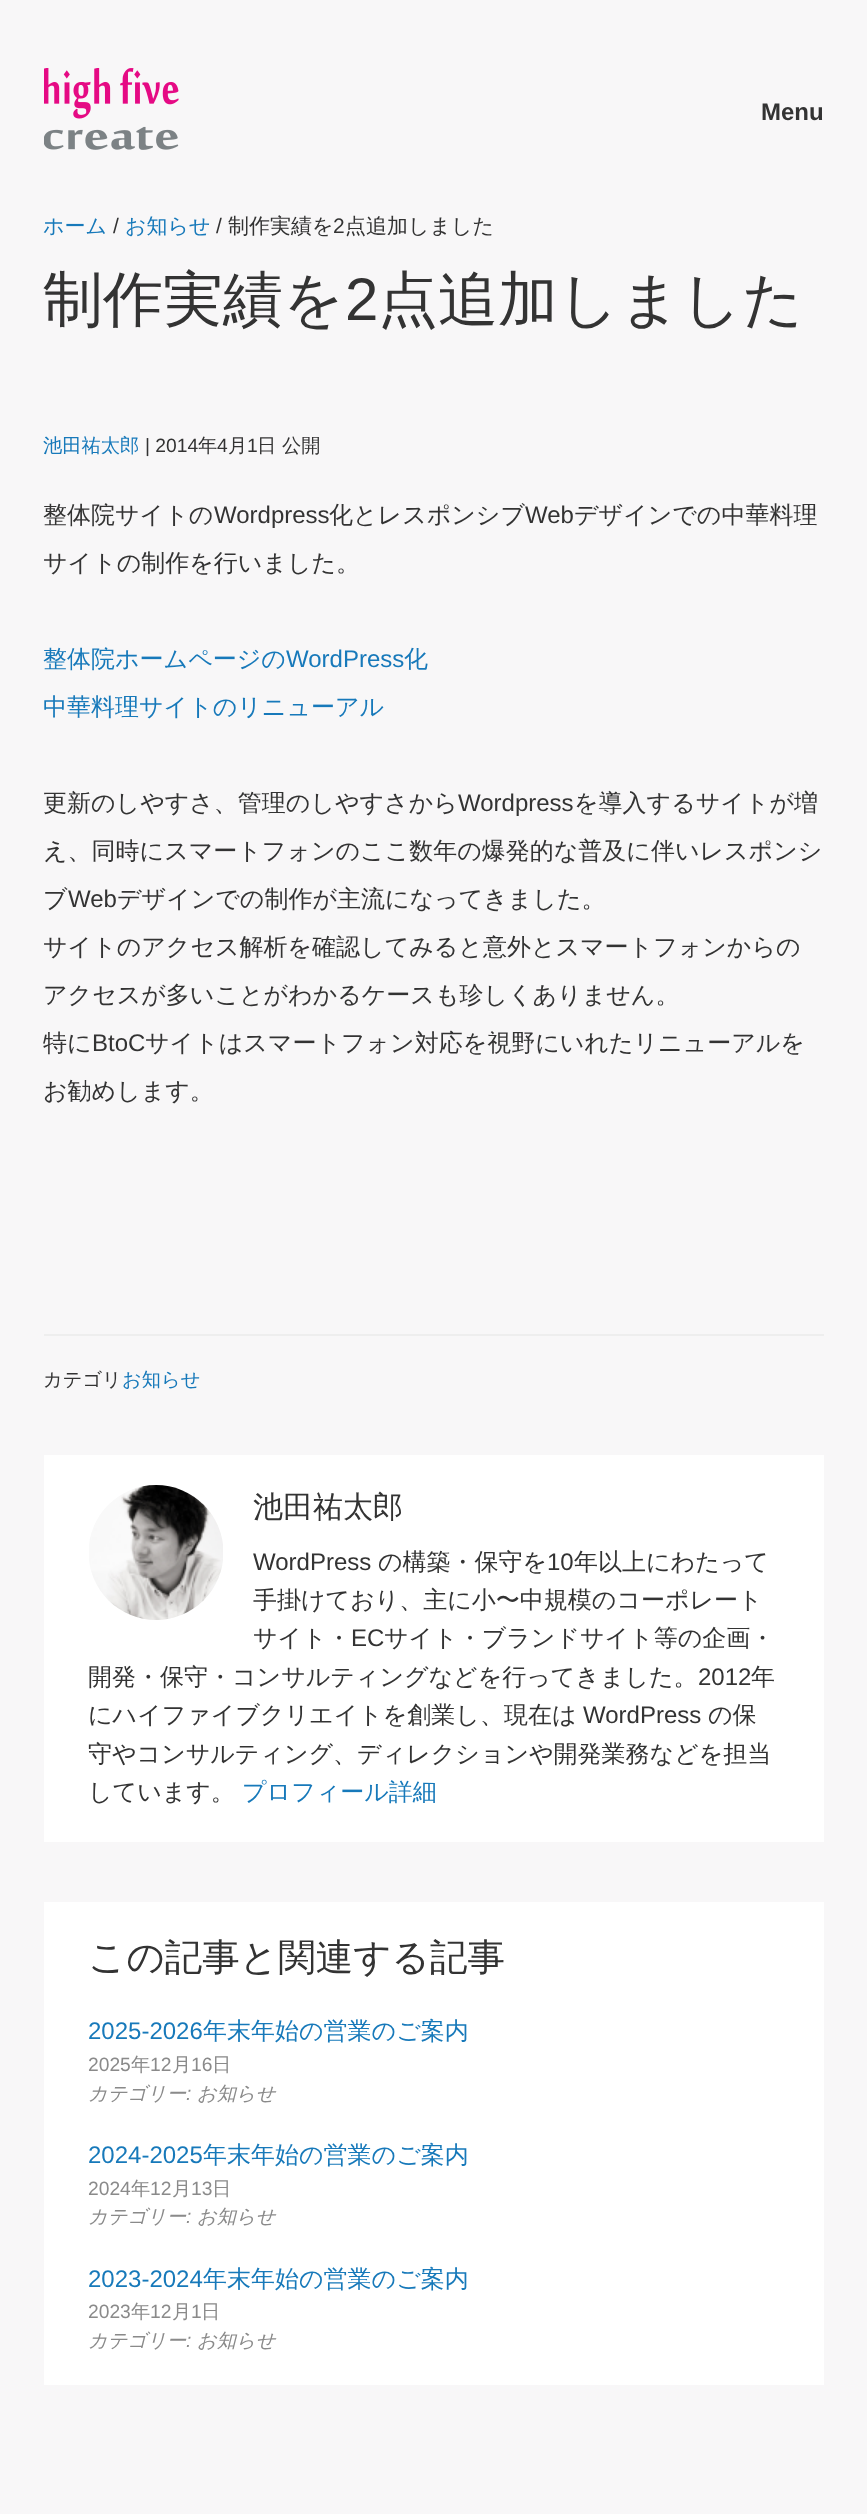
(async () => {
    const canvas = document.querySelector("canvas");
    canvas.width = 867;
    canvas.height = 2514;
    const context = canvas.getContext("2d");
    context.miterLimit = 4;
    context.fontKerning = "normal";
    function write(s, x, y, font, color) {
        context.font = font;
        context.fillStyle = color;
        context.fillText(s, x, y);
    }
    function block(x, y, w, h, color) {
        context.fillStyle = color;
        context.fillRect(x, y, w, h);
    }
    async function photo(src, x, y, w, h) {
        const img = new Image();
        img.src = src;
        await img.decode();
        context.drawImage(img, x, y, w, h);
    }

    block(0, 0, 867, 2514, "rgb(248, 247, 248)");
    await photo("media/1.png", 44, 68, 135, 82);
    write("Menu", 761, 120, "bold 24px Liberation Sans", "rgb(51, 51, 51)");
    write("ホーム", 43, 233, "500 21px WenQuanYi Zen Hei", "rgb(23, 121, 186)");
    write("/", 113, 233, "21px Liberation Sans", "rgb(51, 51, 51)");
    write("お知らせ", 125, 233, "500 21px WenQuanYi Zen Hei", "rgb(23, 121, 186)");
    write("/", 216, 233, "21px Liberation Sans", "rgb(51, 51, 51)");
    write("制作実績を", 228, 233, "500 21px WenQuanYi Zen Hei", "rgb(51, 51, 51)");
    write("2", 333, 233, "21px Liberation Sans", "rgb(51, 51, 51)");
    write("点追加しました", 345, 233, "500 21px WenQuanYi Zen Hei", "rgb(51, 51, 51)");
    write("制作実績を", 43, 320, "500 60px WenQuanYi Zen Hei", "rgb(51, 51, 51)");
    write("2", 345, 320, "60px Liberation Sans", "rgb(51, 51, 51)");
    write("点追加しました", 378, 320, "500 60px WenQuanYi Zen Hei", "rgb(51, 51, 51)");
    write("池田祐太郎", 43, 452, "500 19.25px WenQuanYi Zen Hei", "rgb(23, 121, 186)");
    write("| 2014", 145, 452, "19.25px Liberation Sans", "rgb(51, 51, 51)");
    write("年", 198, 452, "500 19.25px WenQuanYi Zen Hei", "rgb(51, 51, 51)");
    write("4", 217, 452, "19.25px Liberation Sans", "rgb(51, 51, 51)");
    write("月", 228, 452, "500 19.25px WenQuanYi Zen Hei", "rgb(51, 51, 51)");
    write("1", 247, 452, "19.25px Liberation Sans", "rgb(51, 51, 51)");
    write("日", 257, 452, "500 19.25px WenQuanYi Zen Hei", "rgb(51, 51, 51)");
    write("公開", 282, 452, "500 19.25px WenQuanYi Zen Hei", "rgb(51, 51, 51)");
    write("整体院サイトの", 43, 523, "500 24px WenQuanYi Zen Hei", "rgb(51, 51, 51)");
    write("Wordpress", 214, 523, "24px Liberation Sans", "rgb(51, 51, 51)");
    write("化とレスポンシブ", 329, 523, "500 24px WenQuanYi Zen Hei", "rgb(51, 51, 51)");
    write("Web", 525, 523, "24px Liberation Sans", "rgb(51, 51, 51)");
    write("デザインでの中華料理", 574, 523, "500 24px WenQuanYi Zen Hei", "rgb(51, 51, 51)");
    write("サイトの制作を行いました。", 43, 571, "500 24px WenQuanYi Zen Hei", "rgb(51, 51, 51)");
    write("整体院ホームページの", 43, 667, "500 24px WenQuanYi Zen Hei", "rgb(23, 121, 186)");
    write("WordPress", 286, 667, "24px Liberation Sans", "rgb(23, 121, 186)");
    write("化", 404, 667, "500 24px WenQuanYi Zen Hei", "rgb(23, 121, 186)");
    write("中華料理サイトのリニューアル", 43, 715, "500 24px WenQuanYi Zen Hei", "rgb(23, 121, 186)");
    write("更新のしやすさ、管理のしやすさから", 43, 811, "500 24px WenQuanYi Zen Hei", "rgb(51, 51, 51)");
    write("Wordpress", 458, 811, "24px Liberation Sans", "rgb(51, 51, 51)");
    write("を導入するサイトが増", 574, 811, "500 24px WenQuanYi Zen Hei", "rgb(51, 51, 51)");
    write("え、同時にスマートフォンのここ数年の爆発的な普及に伴いレスポンシ", 43, 859, "500 24px WenQuanYi Zen Hei", "rgb(51, 51, 51)");
    write("ブ", 43, 907, "500 24px WenQuanYi Zen Hei", "rgb(51, 51, 51)");
    write("Web", 68, 907, "24px Liberation Sans", "rgb(51, 51, 51)");
    write("デザインでの制作が主流になってきました。", 117, 907, "500 24px WenQuanYi Zen Hei", "rgb(51, 51, 51)");
    write("サイトのアクセス解析を確認してみると意外とスマートフォンからの", 43, 955, "500 24px WenQuanYi Zen Hei", "rgb(51, 51, 51)");
    write("アクセスが多いことがわかるケースも珍しくありません。", 43, 1003, "500 24px WenQuanYi Zen Hei", "rgb(51, 51, 51)");
    write("特に", 43, 1051, "500 24px WenQuanYi Zen Hei", "rgb(51, 51, 51)");
    write("BtoC", 92, 1051, "24px Liberation Sans", "rgb(51, 51, 51)");
    write("サイトはスマートフォン対応を視野にいれたリニューアルを", 145, 1051, "500 24px WenQuanYi Zen Hei", "rgb(51, 51, 51)");
    write("お勧めします。", 43, 1099, "500 24px WenQuanYi Zen Hei", "rgb(51, 51, 51)");
    block(44, 1334, 780, 2, "rgb(238, 238, 238)");
    write("カテゴリ", 43, 1386, "500 19.25px WenQuanYi Zen Hei", "rgb(51, 51, 51)");
    write("お知らせ", 122, 1386, "500 19.25px WenQuanYi Zen Hei", "rgb(23, 121, 186)");
    block(44, 1455, 780, 387, "rgb(255, 255, 255)");
    await photo("media/2.png", 89, 1485, 134, 135);
    write("池田祐太郎", 253, 1517, "500 30px WenQuanYi Zen Hei", "rgb(51, 51, 51)");
    write("WordPress", 253, 1570, "24px Liberation Sans", "rgb(51, 51, 51)");
    write("の構築・保守を", 378, 1570, "500 24px WenQuanYi Zen Hei", "rgb(51, 51, 51)");
    write("10", 547, 1570, "24px Liberation Sans", "rgb(51, 51, 51)");
    write("年以上にわたって", 574, 1570, "500 24px WenQuanYi Zen Hei", "rgb(51, 51, 51)");
    write("手掛けており、主に小〜中規模のコーポレート", 253, 1608, "500 24px WenQuanYi Zen Hei", "rgb(51, 51, 51)");
    write("サイト・", 253, 1646, "500 24px WenQuanYi Zen Hei", "rgb(51, 51, 51)");
    write("EC", 351, 1646, "24px Liberation Sans", "rgb(51, 51, 51)");
    write("サイト・ブランドサイト等の企画・", 384, 1646, "500 24px WenQuanYi Zen Hei", "rgb(51, 51, 51)");
    write("開発・保守・コンサルティングなどを行ってきました。", 88, 1685, "500 24px WenQuanYi Zen Hei", "rgb(51, 51, 51)");
    write("2012", 698, 1685, "24px Liberation Sans", "rgb(51, 51, 51)");
    write("年", 751, 1685, "500 24px WenQuanYi Zen Hei", "rgb(51, 51, 51)");
    write("にハイファイブクリエイトを創業し、現在は", 88, 1723, "500 24px WenQuanYi Zen Hei", "rgb(51, 51, 51)");
    write("WordPress", 583, 1723, "24px Liberation Sans", "rgb(51, 51, 51)");
    write("の保", 708, 1723, "500 24px WenQuanYi Zen Hei", "rgb(51, 51, 51)");
    write("守やコンサルティング、ディレクションや開発業務などを担当", 88, 1762, "500 24px WenQuanYi Zen Hei", "rgb(51, 51, 51)");
    write("しています。", 88, 1800, "500 24px WenQuanYi Zen Hei", "rgb(51, 51, 51)");
    write("プロフィール詳細", 242, 1800, "500 24px WenQuanYi Zen Hei", "rgb(23, 121, 186)");
    block(44, 1902, 780, 483, "rgb(255, 255, 255)");
    write("この記事と関連する記事", 88, 1970, "500 37.5px WenQuanYi Zen Hei", "rgb(51, 51, 51)");
    write("2025-2026", 88, 2039, "24px Liberation Sans", "rgb(23, 121, 186)");
    write("年末年始の営業のご案内", 203, 2039, "500 24px WenQuanYi Zen Hei", "rgb(23, 121, 186)");
    write("2025", 88, 2071, "19.25px Liberation Sans", "rgb(138, 138, 138)");
    write("年", 131, 2071, "500 19.25px WenQuanYi Zen Hei", "rgb(138, 138, 138)");
    write("12", 150, 2071, "19.25px Liberation Sans", "rgb(138, 138, 138)");
    write("月", 172, 2071, "500 19.25px WenQuanYi Zen Hei", "rgb(138, 138, 138)");
    write("16", 191, 2071, "19.25px Liberation Sans", "rgb(138, 138, 138)");
    write("日", 212, 2071, "500 19.25px WenQuanYi Zen Hei", "rgb(138, 138, 138)");
    write("カテゴリー", 88, 2100, "italic 500 19.25px WenQuanYi Zen Hei", "rgb(138, 138, 138)");
    write(":", 186, 2100, "italic 19.25px Liberation Sans", "rgb(138, 138, 138)");
    write("お知らせ", 197, 2100, "italic 500 19.25px WenQuanYi Zen Hei", "rgb(138, 138, 138)");
    write("2024-2025", 88, 2163, "24px Liberation Sans", "rgb(23, 121, 186)");
    write("年末年始の営業のご案内", 203, 2163, "500 24px WenQuanYi Zen Hei", "rgb(23, 121, 186)");
    write("2024", 88, 2195, "19.25px Liberation Sans", "rgb(138, 138, 138)");
    write("年", 131, 2195, "500 19.25px WenQuanYi Zen Hei", "rgb(138, 138, 138)");
    write("12", 150, 2195, "19.25px Liberation Sans", "rgb(138, 138, 138)");
    write("月", 172, 2195, "500 19.25px WenQuanYi Zen Hei", "rgb(138, 138, 138)");
    write("13", 191, 2195, "19.25px Liberation Sans", "rgb(138, 138, 138)");
    write("日", 212, 2195, "500 19.25px WenQuanYi Zen Hei", "rgb(138, 138, 138)");
    write("カテゴリー", 88, 2223, "italic 500 19.25px WenQuanYi Zen Hei", "rgb(138, 138, 138)");
    write(":", 186, 2223, "italic 19.25px Liberation Sans", "rgb(138, 138, 138)");
    write("お知らせ", 197, 2223, "italic 500 19.25px WenQuanYi Zen Hei", "rgb(138, 138, 138)");
    write("2023-2024", 88, 2287, "24px Liberation Sans", "rgb(23, 121, 186)");
    write("年末年始の営業のご案内", 203, 2287, "500 24px WenQuanYi Zen Hei", "rgb(23, 121, 186)");
    write("2023", 88, 2318, "19.25px Liberation Sans", "rgb(138, 138, 138)");
    write("年", 131, 2318, "500 19.25px WenQuanYi Zen Hei", "rgb(138, 138, 138)");
    write("12", 150, 2318, "19.25px Liberation Sans", "rgb(138, 138, 138)");
    write("月", 172, 2318, "500 19.25px WenQuanYi Zen Hei", "rgb(138, 138, 138)");
    write("1", 191, 2318, "19.25px Liberation Sans", "rgb(138, 138, 138)");
    write("日", 201, 2318, "500 19.25px WenQuanYi Zen Hei", "rgb(138, 138, 138)");
    write("カテゴリー", 88, 2347, "italic 500 19.25px WenQuanYi Zen Hei", "rgb(138, 138, 138)");
    write(":", 186, 2347, "italic 19.25px Liberation Sans", "rgb(138, 138, 138)");
    write("お知らせ", 197, 2347, "italic 500 19.25px WenQuanYi Zen Hei", "rgb(138, 138, 138)");
})();
